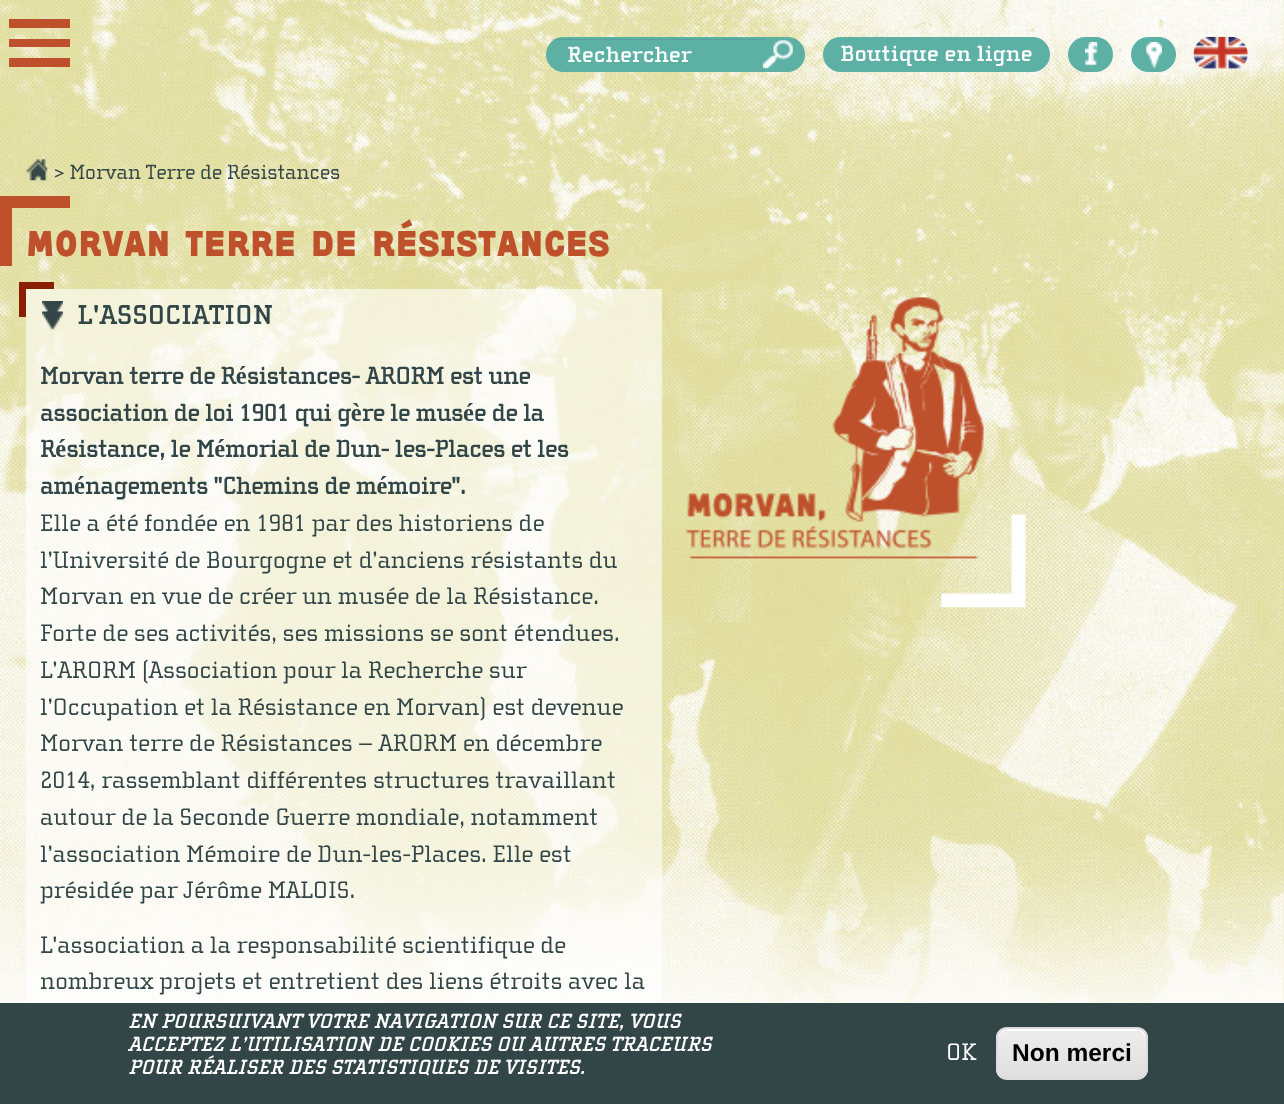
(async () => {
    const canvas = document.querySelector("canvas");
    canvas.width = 1284;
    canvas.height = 1104;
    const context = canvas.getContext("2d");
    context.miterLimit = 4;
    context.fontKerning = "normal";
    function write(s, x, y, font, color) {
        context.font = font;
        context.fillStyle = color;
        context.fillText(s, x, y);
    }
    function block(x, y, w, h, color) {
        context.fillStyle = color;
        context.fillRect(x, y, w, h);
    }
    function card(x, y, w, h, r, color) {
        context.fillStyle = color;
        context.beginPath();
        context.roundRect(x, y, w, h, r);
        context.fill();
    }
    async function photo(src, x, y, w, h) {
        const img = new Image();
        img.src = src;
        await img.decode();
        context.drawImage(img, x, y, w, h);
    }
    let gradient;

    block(0, 0, 1284, 1104, "rgb(255, 255, 255)");
    await photo("media/10.png", 1283, 0, 1, 1003);
    await photo("media/1.png", 1283, 388, 1, 434);
    await photo("media/2.png", 0, 0, 1284, 1003);
    block(9, 19, 61, 9, "rgb(190, 81, 43)");
    block(9, 39, 61, 8, "rgb(190, 81, 43)");
    block(9, 58, 61, 9, "rgb(190, 81, 43)");
    card(546, 37, 259, 35, 17.5, "rgb(92, 176, 164)");
    context.fillStyle = "rgba(0, 0, 0, 0.07)";
    context.beginPath();
    context.moveTo(553, 40);
    context.lineTo(765, 40);
    context.lineTo(765, 39);
    context.lineTo(553, 39);
    context.bezierCurveTo(549, 39, 546, 42, 546, 46);
    context.lineTo(546, 48);
    context.bezierCurveTo(546, 43, 548, 40, 553, 40);
    context.closePath();
    context.fill();
    write("Rechercher", 567, 62, "bold 22.75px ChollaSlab", "rgb(255, 255, 255)");
    await photo("media/3.png", 763, 40, 30, 29);
    card(823, 37, 227, 35, 17.5, "rgb(92, 176, 164)");
    write("Boutique en ligne", 840, 61, "bold 22.75px ChollaSlab", "rgb(255, 255, 255)");
    card(1068, 37, 45, 35, 17.5, "rgb(92, 176, 164)");
    await photo("media/4.png", 1085, 42, 13, 24);
    card(1131, 37, 45, 35, 17.5, "rgb(92, 176, 164)");
    await photo("media/5.png", 1146, 42, 16, 27);
    await photo("media/6.png", 1193, 36, 55, 33);
    await photo("media/7.png", 26, 159, 22, 22);
    write("> Morvan Terre de Résistances", 54, 179, "21px ChollaSlab", "rgb(51, 70, 71)");
    block(0, 196, 12, 70, "rgb(190, 81, 43)");
    block(12, 196, 58, 12, "rgb(190, 81, 43)");
    write("MORVAN TERRE DE RÉSISTANCES", 26, 256, "900 21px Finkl", "rgb(190, 81, 43)");
    block(26, 289, 636, 714, "rgba(255, 255, 255, 0.6)");
    block(19, 282, 35, 7, "rgb(138, 31, 3)");
    block(19, 282, 7, 35, "rgb(138, 31, 3)");
    await photo("media/8.png", 42, 301, 21, 29);
    write("L'ASSOCIATION", 77, 324, "bold 28px ChollaSlab", "rgb(51, 70, 71)");
    write("Morvan terre de Résistances- ARORM est une", 40, 384, "bold 24.5px 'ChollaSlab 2'", "rgb(51, 70, 71)");
    write("association de loi 1901 qui gère le musée de la", 40, 421, "bold 24.5px 'ChollaSlab 2'", "rgb(51, 70, 71)");
    write("Résistance, le Mémorial de Dun- les-Places et les", 40, 457, "bold 24.5px 'ChollaSlab 2'", "rgb(51, 70, 71)");
    write("aménagements \"Chemins de mémoire\".", 40, 494, "bold 24.5px 'ChollaSlab 2'", "rgb(51, 70, 71)");
    write("Elle a été fondée en 1981 par des historiens de", 40, 531, "24.5px ChollaSlab", "rgb(51, 70, 71)");
    write("l’Université de Bourgogne et d’anciens résistants du", 40, 568, "24.5px ChollaSlab", "rgb(51, 70, 71)");
    write("Morvan en vue de créer un musée de la Résistance.", 40, 604, "24.5px ChollaSlab", "rgb(51, 70, 71)");
    write("Forte de ses activités, ses missions se sont étendues.", 40, 641, "24.5px ChollaSlab", "rgb(51, 70, 71)");
    write("L’ARORM (Association pour la Recherche sur", 40, 678, "24.5px ChollaSlab", "rgb(51, 70, 71)");
    write("l’Occupation et la Résistance en Morvan) est devenue", 40, 715, "24.5px ChollaSlab", "rgb(51, 70, 71)");
    write("Morvan terre de Résistances – ARORM en décembre", 40, 751, "24.5px ChollaSlab", "rgb(51, 70, 71)");
    write("2014, rassemblant différentes structures travaillant", 40, 788, "24.5px ChollaSlab", "rgb(51, 70, 71)");
    write("autour de la Seconde Guerre mondiale, notamment", 40, 825, "24.5px ChollaSlab", "rgb(51, 70, 71)");
    write("l’association Mémoire de Dun-les-Places. Elle est", 40, 862, "24.5px ChollaSlab", "rgb(51, 70, 71)");
    write("présidée par Jérôme MALOIS.", 40, 898, "24.5px ChollaSlab", "rgb(51, 70, 71)");
    write("L'association a la responsabilité scientifique de", 40, 953, "24.5px ChollaSlab", "rgb(51, 70, 71)");
    write("nombreux projets et entretient des liens étroits avec la", 40, 989, "24.5px ChollaSlab", "rgb(51, 70, 71)");
    await photo("media/9.png", 685, 297, 341, 311);
    block(0, 1003, 1284, 101, "rgb(51, 70, 71)");
    write("EN POURSUIVANT VOTRE NAVIGATION SUR CE SITE, VOUS", 128, 1028, "italic bold 21px ChollaSlab", "rgb(255, 255, 255)");
    write("ACCEPTEZ L’UTILISATION DE COOKIES OU AUTRES TRACEURS", 128, 1051, "italic bold 21px ChollaSlab", "rgb(255, 255, 255)");
    write("POUR RÉALISER DES STATISTIQUES DE VISITES.", 128, 1074, "italic bold 21px ChollaSlab", "rgb(255, 255, 255)");
    write("OK", 946, 1060, "24.5px ChollaSlab", "rgb(255, 255, 255)");
    context.save();
    context.beginPath();
    context.roundRect(996, 1027, 152, 53, 11);
    context.clip();
    gradient = context.createLinearGradient(1072, 1029, 1072, 1078);
    gradient.addColorStop(0.05, "rgb(237, 237, 237)");
    gradient.addColorStop(1, "rgb(223, 223, 223)");
    context.fillStyle = gradient;
    context.fillRect(996, 1029, 152, 49);
    context.restore();
    context.beginPath();
    context.moveTo(1006, 1031);
    context.lineTo(1138, 1031);
    context.bezierCurveTo(1142, 1031, 1146, 1035, 1146, 1040);
    context.lineTo(1146, 1038);
    context.bezierCurveTo(1146, 1033, 1142, 1029, 1137, 1029);
    context.lineTo(1007, 1029);
    context.bezierCurveTo(1002, 1029, 998, 1033, 998, 1038);
    context.lineTo(998, 1040);
    context.bezierCurveTo(998, 1035, 1001, 1031, 1006, 1031);
    context.closePath();
    context.fill();
    context.beginPath();
    context.roundRect(997, 1028, 150, 51, 10);
    context.strokeStyle = "rgb(220, 220, 220)";
    context.lineWidth = 2;
    context.stroke();
    write("Non merci", 1012, 1061, "bold 24.5px Liberation Sans", "rgb(0, 0, 0)");
})();
